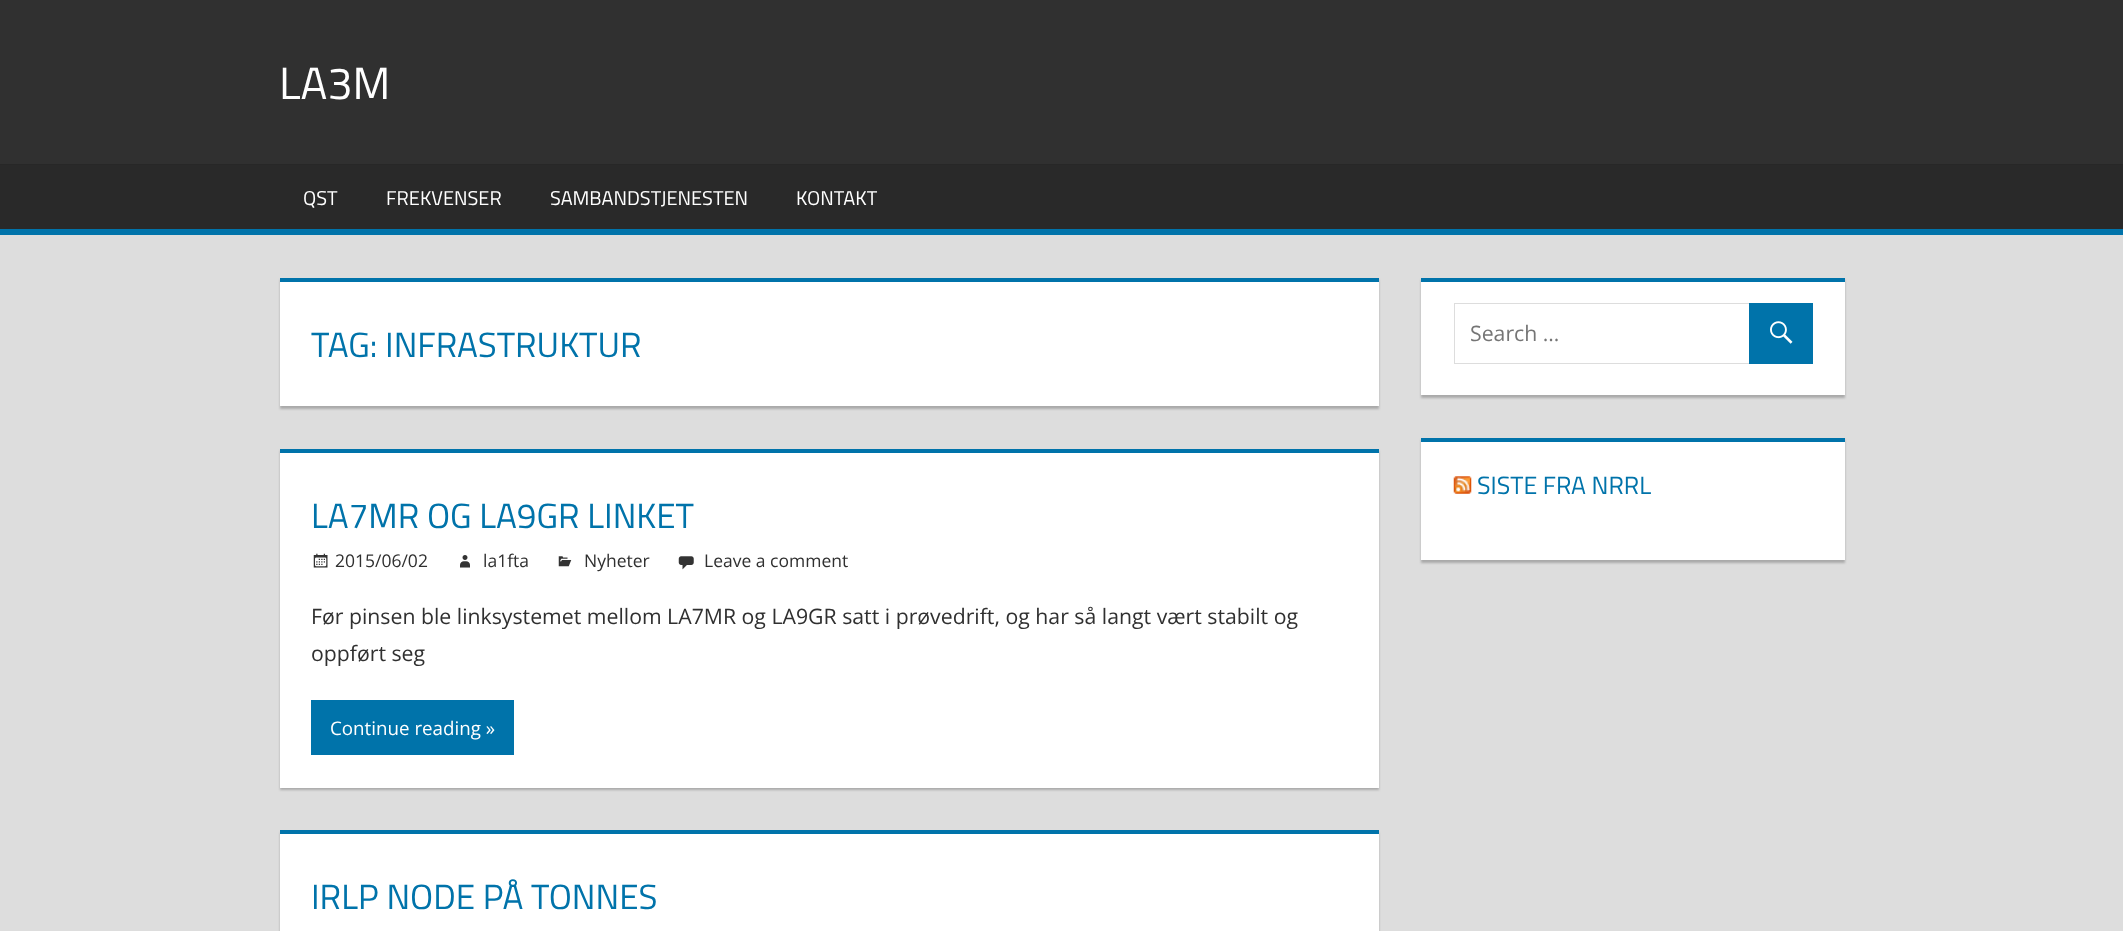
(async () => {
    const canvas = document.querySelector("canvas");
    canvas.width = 2123;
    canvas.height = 931;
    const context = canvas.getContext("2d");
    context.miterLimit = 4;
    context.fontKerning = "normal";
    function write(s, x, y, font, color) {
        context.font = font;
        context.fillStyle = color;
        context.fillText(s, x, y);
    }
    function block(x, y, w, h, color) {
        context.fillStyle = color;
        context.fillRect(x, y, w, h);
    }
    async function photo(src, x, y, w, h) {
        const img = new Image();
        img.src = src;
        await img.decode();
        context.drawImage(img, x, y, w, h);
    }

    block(0, 0, 2123, 931, "rgb(221, 221, 221)");
    block(0, 0, 2123, 164, "rgb(48, 48, 48)");
    write("LA3M", 279, 99, "45px Titillium Web", "rgb(255, 255, 255)");
    block(0, 165, 2123, 64, "rgb(41, 41, 41)");
    block(0, 164, 2123, 1, "rgb(39, 39, 39)");
    block(0, 229, 2123, 6, "rgb(0, 115, 170)");
    write("QST", 303, 205, "20px Titillium Web", "rgb(255, 255, 255)");
    write("FREKVENSER", 386, 205, "20px Titillium Web", "rgb(255, 255, 255)");
    write("SAMBANDSTJENESTEN", 550, 205, "20px Titillium Web", "rgb(255, 255, 255)");
    write("KONTAKT", 796, 205, "20px Titillium Web", "rgb(255, 255, 255)");
    context.fillStyle = "rgb(170, 170, 170)";
    context.filter = "blur(1px)";
    context.beginPath();
    context.rect(280, 280, 1099, 129);
    context.fill();
    context.filter = "none";
    block(280, 282, 1099, 124, "rgb(255, 255, 255)");
    block(280, 278, 1099, 4, "rgb(0, 115, 170)");
    write("TAG: INFRASTRUKTUR", 311, 357, "35px Titillium Web", "rgb(0, 115, 170)");
    context.fillStyle = "rgb(170, 170, 170)";
    context.filter = "blur(1px)";
    context.beginPath();
    context.rect(280, 451, 1099, 339);
    context.fill();
    context.filter = "none";
    block(280, 453, 1099, 335, "rgb(255, 255, 255)");
    block(280, 449, 1099, 4, "rgb(0, 115, 170)");
    write("LA7MR OG LA9GR LINKET", 311, 528, "35px Titillium Web", "rgb(0, 115, 170)");
    await photo("media/1.png", 313, 553, 15, 15);
    write("2015/06/02", 335, 567, "17.5px Open Sans", "rgb(48, 48, 48)");
    await photo("media/2.png", 460, 555, 10, 13);
    write("la1fta", 483, 567, "17.5px Open Sans", "rgb(48, 48, 48)");
    await photo("media/3.png", 558, 556, 14, 11);
    write("Nyheter", 584, 567, "17.5px Open Sans", "rgb(48, 48, 48)");
    await photo("media/4.png", 678, 556, 16, 14);
    write("Leave a comment", 704, 567, "17.5px Open Sans", "rgb(48, 48, 48)");
    write("Før pinsen ble linksystemet mellom LA7MR og LA9GR satt i prøvedrift, og har så langt vært stabilt og", 311, 624, "21.25px Open Sans", "rgb(48, 48, 48)");
    write("oppført seg", 311, 661, "21.25px Open Sans", "rgb(48, 48, 48)");
    block(311, 700, 203, 55, "rgb(0, 115, 170)");
    write("Continue reading »", 330, 735, "18.75px Open Sans", "rgb(255, 255, 255)");
    context.fillStyle = "rgb(170, 170, 170)";
    context.filter = "blur(1px)";
    context.beginPath();
    context.rect(280, 833, 1099, 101);
    context.fill();
    context.filter = "none";
    block(280, 834, 1099, 97, "rgb(255, 255, 255)");
    block(280, 830, 1099, 4, "rgb(0, 115, 170)");
    write("IRLP NODE PÅ TONNES", 311, 909, "35px Titillium Web", "rgb(0, 115, 170)");
    context.fillStyle = "rgb(170, 170, 170)";
    context.filter = "blur(1px)";
    context.beginPath();
    context.rect(1421, 280, 424, 118);
    context.fill();
    context.filter = "none";
    block(1421, 282, 424, 113, "rgb(255, 255, 255)");
    block(1421, 278, 424, 4, "rgb(0, 115, 170)");
    context.strokeStyle = "rgb(221, 221, 221)";
    context.strokeRect(1454.5, 303.5, 358, 60);
    write("Search …", 1470, 341, "21.25px Open Sans", "rgb(117, 117, 117)");
    block(1749, 303, 64, 61, "rgb(0, 115, 170)");
    await photo("media/5.png", 1770, 321, 23, 23);
    context.fillStyle = "rgb(170, 170, 170)";
    context.filter = "blur(1px)";
    context.beginPath();
    context.rect(1421, 440, 424, 123);
    context.fill();
    context.filter = "none";
    block(1421, 442, 424, 118, "rgb(255, 255, 255)");
    block(1421, 438, 424, 4, "rgb(0, 115, 170)");
    await photo("media/6.png", 1453, 476, 19, 18);
    write("SISTE FRA NRRL", 1477, 494, "25px Titillium Web", "rgb(0, 115, 170)");
})();
